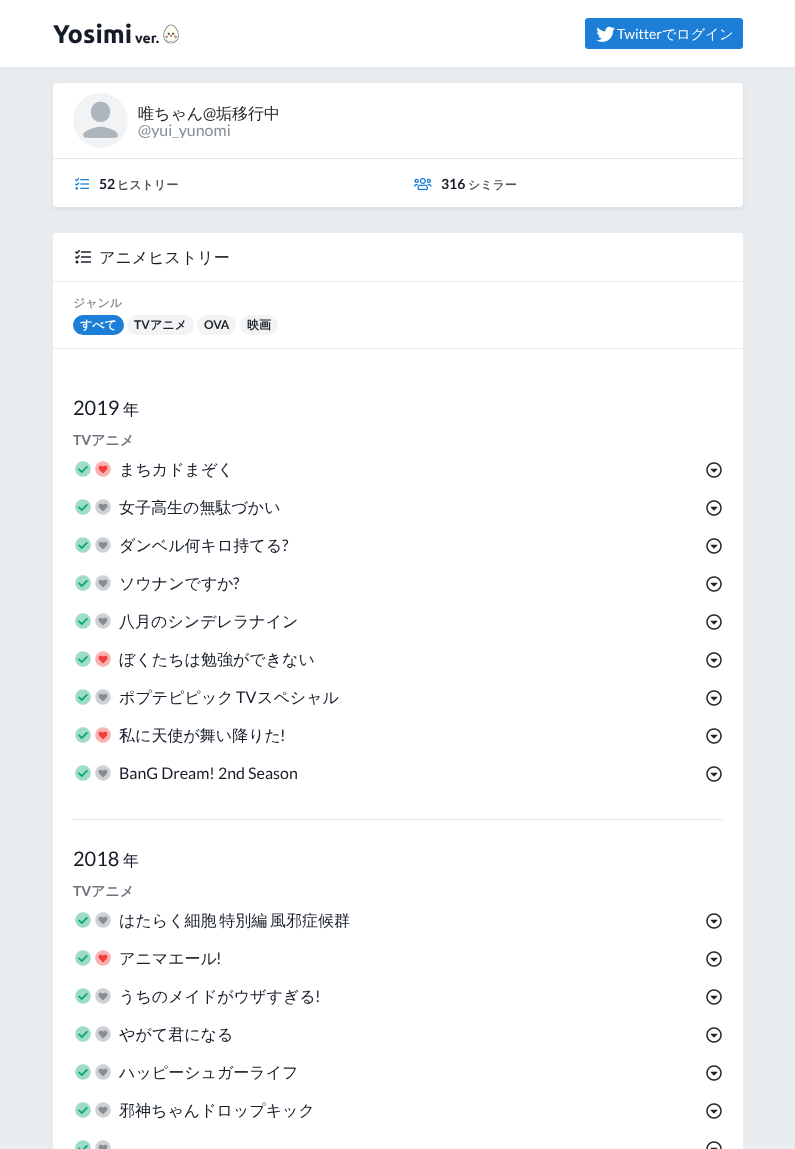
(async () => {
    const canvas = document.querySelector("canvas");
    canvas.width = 795;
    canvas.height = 1149;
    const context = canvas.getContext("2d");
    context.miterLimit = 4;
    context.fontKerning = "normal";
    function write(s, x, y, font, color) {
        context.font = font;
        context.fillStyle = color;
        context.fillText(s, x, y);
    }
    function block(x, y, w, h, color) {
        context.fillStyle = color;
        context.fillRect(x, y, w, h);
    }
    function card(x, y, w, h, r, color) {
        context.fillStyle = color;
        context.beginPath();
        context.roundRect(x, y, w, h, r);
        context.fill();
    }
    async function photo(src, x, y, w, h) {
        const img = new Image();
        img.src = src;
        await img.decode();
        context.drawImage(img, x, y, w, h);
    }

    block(0, 0, 795, 1149, "rgb(233, 236, 239)");
    block(0, 0, 795, 67, "rgb(255, 255, 255)");
    write("Yosimi", 53, 43, "bold 25.5px Ubuntu", "rgb(22, 29, 41)");
    write("ver.", 135, 43, "bold 14px Ubuntu", "rgb(22, 29, 41)");
    await photo("media/1.png", 163, 24, 16, 20);
    context.fillStyle = "rgb(28, 126, 214)";
    context.beginPath();
    context.roundRect(585.5, 18.5, 157, 30, 2.5);
    context.fill();
    context.strokeStyle = "rgb(28, 126, 214)";
    context.stroke();
    await photo("media/2.png", 596, 26, 19, 16);
    write("Twitter", 617, 39, "14px Lato", "rgb(255, 255, 255)");
    write("でログイン", 662, 39, "500 14px WenQuanYi Zen Hei", "rgb(255, 255, 255)");
    context.fillStyle = "rgba(0, 0, 0, 0.07)";
    context.filter = "blur(2px)";
    context.beginPath();
    context.roundRect(53, 85, 690, 124, 4);
    context.fill();
    context.filter = "none";
    card(53, 83, 690, 124, 4, "rgb(255, 255, 255)");
    await photo("media/3.png", 73, 93, 55, 55);
    write("唯ちゃん", 138, 119, "500 16px WenQuanYi Zen Hei", "rgb(33, 37, 41)");
    write("@", 203, 119, "16px Lato", "rgb(33, 37, 41)");
    write("垢移行中", 216, 119, "500 16px WenQuanYi Zen Hei", "rgb(33, 37, 41)");
    context.save();
    context.beginPath();
    context.rect(138, 122, 585, 16);
    context.clip();
    write("@yui_yunomi", 138, 136, "16px Lato", "rgb(134, 142, 150)");
    context.restore();
    block(53, 158, 690, 1, "rgb(230, 230, 230)");
    await photo("media/4.png", 75, 177, 14, 13);
    write("52", 99, 189, "bold 14px Lato", "rgb(22, 29, 41)");
    write("ヒストリー", 117, 189, "bold 12px WenQuanYi Zen Hei", "rgb(73, 80, 87)");
    await photo("media/5.png", 414, 177, 18, 14);
    write("316", 441, 189, "bold 14px Lato", "rgb(22, 29, 41)");
    write("シミラー", 468, 189, "bold 12px WenQuanYi Zen Hei", "rgb(73, 80, 87)");
    card(53, 233, 690, 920, 4, "rgb(255, 255, 255)");
    context.beginPath();
    context.roundRect(53, 233, 690, 49, [3, 3, 0, 0]);
    context.fill();
    block(53, 281, 690, 1, "rgb(233, 236, 239)");
    await photo("media/6.png", 75, 250, 16, 14);
    write("アニメヒストリー", 99, 263, "500 16px WenQuanYi Zen Hei", "rgb(22, 29, 41)");
    block(53, 348, 690, 1, "rgb(233, 236, 239)");
    write("ジャンル", 73, 307, "bold 12px WenQuanYi Zen Hei", "rgb(134, 142, 150)");
    card(73, 315, 51, 20, 10, "rgb(28, 126, 214)");
    write("すべて", 80, 329, "bold 12px WenQuanYi Zen Hei", "rgb(255, 255, 255)");
    card(127, 315, 67, 20, 10, "rgb(241, 243, 245)");
    write("TV", 134, 329, "bold 12px Lato", "rgb(33, 37, 41)");
    write("アニメ", 150, 329, "bold 12px WenQuanYi Zen Hei", "rgb(33, 37, 41)");
    card(197, 315, 39, 20, 10, "rgb(241, 243, 245)");
    write("OVA", 204, 329, "bold 12px Lato", "rgb(33, 37, 41)");
    card(240, 315, 38, 20, 10, "rgb(241, 243, 245)");
    write("映画", 247, 329, "bold 12px WenQuanYi Zen Hei", "rgb(33, 37, 41)");
    write("2019", 73, 415, "20px Lato", "rgb(22, 29, 41)");
    write("年", 123, 415, "500 16px WenQuanYi Zen Hei", "rgb(22, 29, 41)");
    write("TV", 73, 445, "bold 14px Lato", "rgb(108, 117, 125)");
    write("アニメ", 91, 445, "bold 14px WenQuanYi Zen Hei", "rgb(108, 117, 125)");
    await photo("media/7.png", 75, 461, 16, 16);
    await photo("media/8.png", 95, 461, 16, 16);
    write("まちカドまぞく", 119, 475, "500 16px WenQuanYi Zen Hei", "rgb(22, 29, 41)");
    await photo("media/9.png", 706, 462, 16, 16);
    await photo("media/7.png", 75, 499, 16, 16);
    await photo("media/10.png", 95, 499, 16, 16);
    write("女子高生の無駄づかい", 119, 513, "500 16px WenQuanYi Zen Hei", "rgb(22, 29, 41)");
    await photo("media/9.png", 706, 500, 16, 16);
    await photo("media/7.png", 75, 537, 16, 16);
    await photo("media/10.png", 95, 537, 16, 16);
    write("ダンベル何キロ持てる", 119, 551, "500 16px WenQuanYi Zen Hei", "rgb(22, 29, 41)");
    write("?", 282, 551, "16px Lato", "rgb(22, 29, 41)");
    await photo("media/9.png", 706, 538, 16, 16);
    await photo("media/7.png", 75, 575, 16, 16);
    await photo("media/10.png", 95, 575, 16, 16);
    write("ソウナンですか", 119, 589, "500 16px WenQuanYi Zen Hei", "rgb(22, 29, 41)");
    write("?", 233, 589, "16px Lato", "rgb(22, 29, 41)");
    await photo("media/9.png", 706, 576, 16, 16);
    await photo("media/7.png", 75, 613, 16, 16);
    await photo("media/10.png", 95, 613, 16, 16);
    write("八月のシンデレラナイン", 119, 627, "500 16px WenQuanYi Zen Hei", "rgb(22, 29, 41)");
    await photo("media/9.png", 706, 614, 16, 16);
    await photo("media/7.png", 75, 651, 16, 16);
    await photo("media/8.png", 95, 651, 16, 16);
    write("ぼくたちは勉強ができない", 119, 665, "500 16px WenQuanYi Zen Hei", "rgb(22, 29, 41)");
    await photo("media/9.png", 706, 652, 16, 16);
    await photo("media/7.png", 75, 689, 16, 16);
    await photo("media/10.png", 95, 689, 16, 16);
    write("ポプテピピック", 119, 703, "500 16px WenQuanYi Zen Hei", "rgb(22, 29, 41)");
    write("TV", 236, 703, "16px Lato", "rgb(22, 29, 41)");
    write("スペシャル", 257, 703, "500 16px WenQuanYi Zen Hei", "rgb(22, 29, 41)");
    await photo("media/9.png", 706, 690, 16, 16);
    await photo("media/7.png", 75, 727, 16, 16);
    await photo("media/8.png", 95, 727, 16, 16);
    write("私に天使が舞い降りた", 119, 741, "500 16px WenQuanYi Zen Hei", "rgb(22, 29, 41)");
    write("!", 280, 741, "16px Lato", "rgb(22, 29, 41)");
    await photo("media/9.png", 706, 728, 16, 16);
    await photo("media/7.png", 75, 765, 16, 16);
    await photo("media/10.png", 95, 765, 16, 16);
    write("BanG Dream! 2nd Season", 119, 779, "16px Lato", "rgb(22, 29, 41)");
    await photo("media/9.png", 706, 766, 16, 16);
    block(73, 819, 650, 1, "rgb(230, 230, 230)");
    write("2018", 73, 866, "20px Lato", "rgb(22, 29, 41)");
    write("年", 123, 866, "500 16px WenQuanYi Zen Hei", "rgb(22, 29, 41)");
    write("TV", 73, 896, "bold 14px Lato", "rgb(108, 117, 125)");
    write("アニメ", 91, 896, "bold 14px WenQuanYi Zen Hei", "rgb(108, 117, 125)");
    await photo("media/7.png", 75, 912, 16, 16);
    await photo("media/10.png", 95, 912, 16, 16);
    context.wordSpacing = "-2px";
    write("はたらく細胞 特別編 風邪症候群", 119, 926, "500 16px WenQuanYi Zen Hei", "rgb(22, 29, 41)");
    await photo("media/9.png", 706, 913, 16, 16);
    await photo("media/7.png", 75, 950, 16, 16);
    await photo("media/8.png", 95, 950, 16, 16);
    context.wordSpacing = "0px";
    write("アニマエール", 119, 964, "500 16px WenQuanYi Zen Hei", "rgb(22, 29, 41)");
    write("!", 216, 964, "16px Lato", "rgb(22, 29, 41)");
    await photo("media/9.png", 706, 951, 16, 16);
    await photo("media/7.png", 75, 988, 16, 16);
    await photo("media/10.png", 95, 988, 16, 16);
    write("うちのメイドがウザすぎる", 119, 1002, "500 16px WenQuanYi Zen Hei", "rgb(22, 29, 41)");
    write("!", 315, 1002, "16px Lato", "rgb(22, 29, 41)");
    await photo("media/9.png", 706, 989, 16, 16);
    await photo("media/7.png", 75, 1026, 16, 16);
    await photo("media/10.png", 95, 1026, 16, 16);
    write("やがて君になる", 119, 1040, "500 16px WenQuanYi Zen Hei", "rgb(22, 29, 41)");
    await photo("media/9.png", 706, 1027, 16, 16);
    await photo("media/7.png", 75, 1064, 16, 16);
    await photo("media/10.png", 95, 1064, 16, 16);
    write("ハッピーシュガーライフ", 119, 1078, "500 16px WenQuanYi Zen Hei", "rgb(22, 29, 41)");
    await photo("media/9.png", 706, 1065, 16, 16);
    await photo("media/7.png", 75, 1102, 16, 16);
    await photo("media/10.png", 95, 1102, 16, 16);
    write("邪神ちゃんドロップキック", 119, 1116, "500 16px WenQuanYi Zen Hei", "rgb(22, 29, 41)");
    await photo("media/9.png", 706, 1103, 16, 16);
    await photo("media/11.png", 75, 1140, 16, 9);
    await photo("media/12.png", 95, 1140, 16, 9);
    await photo("media/13.png", 706, 1141, 16, 8);
})();
